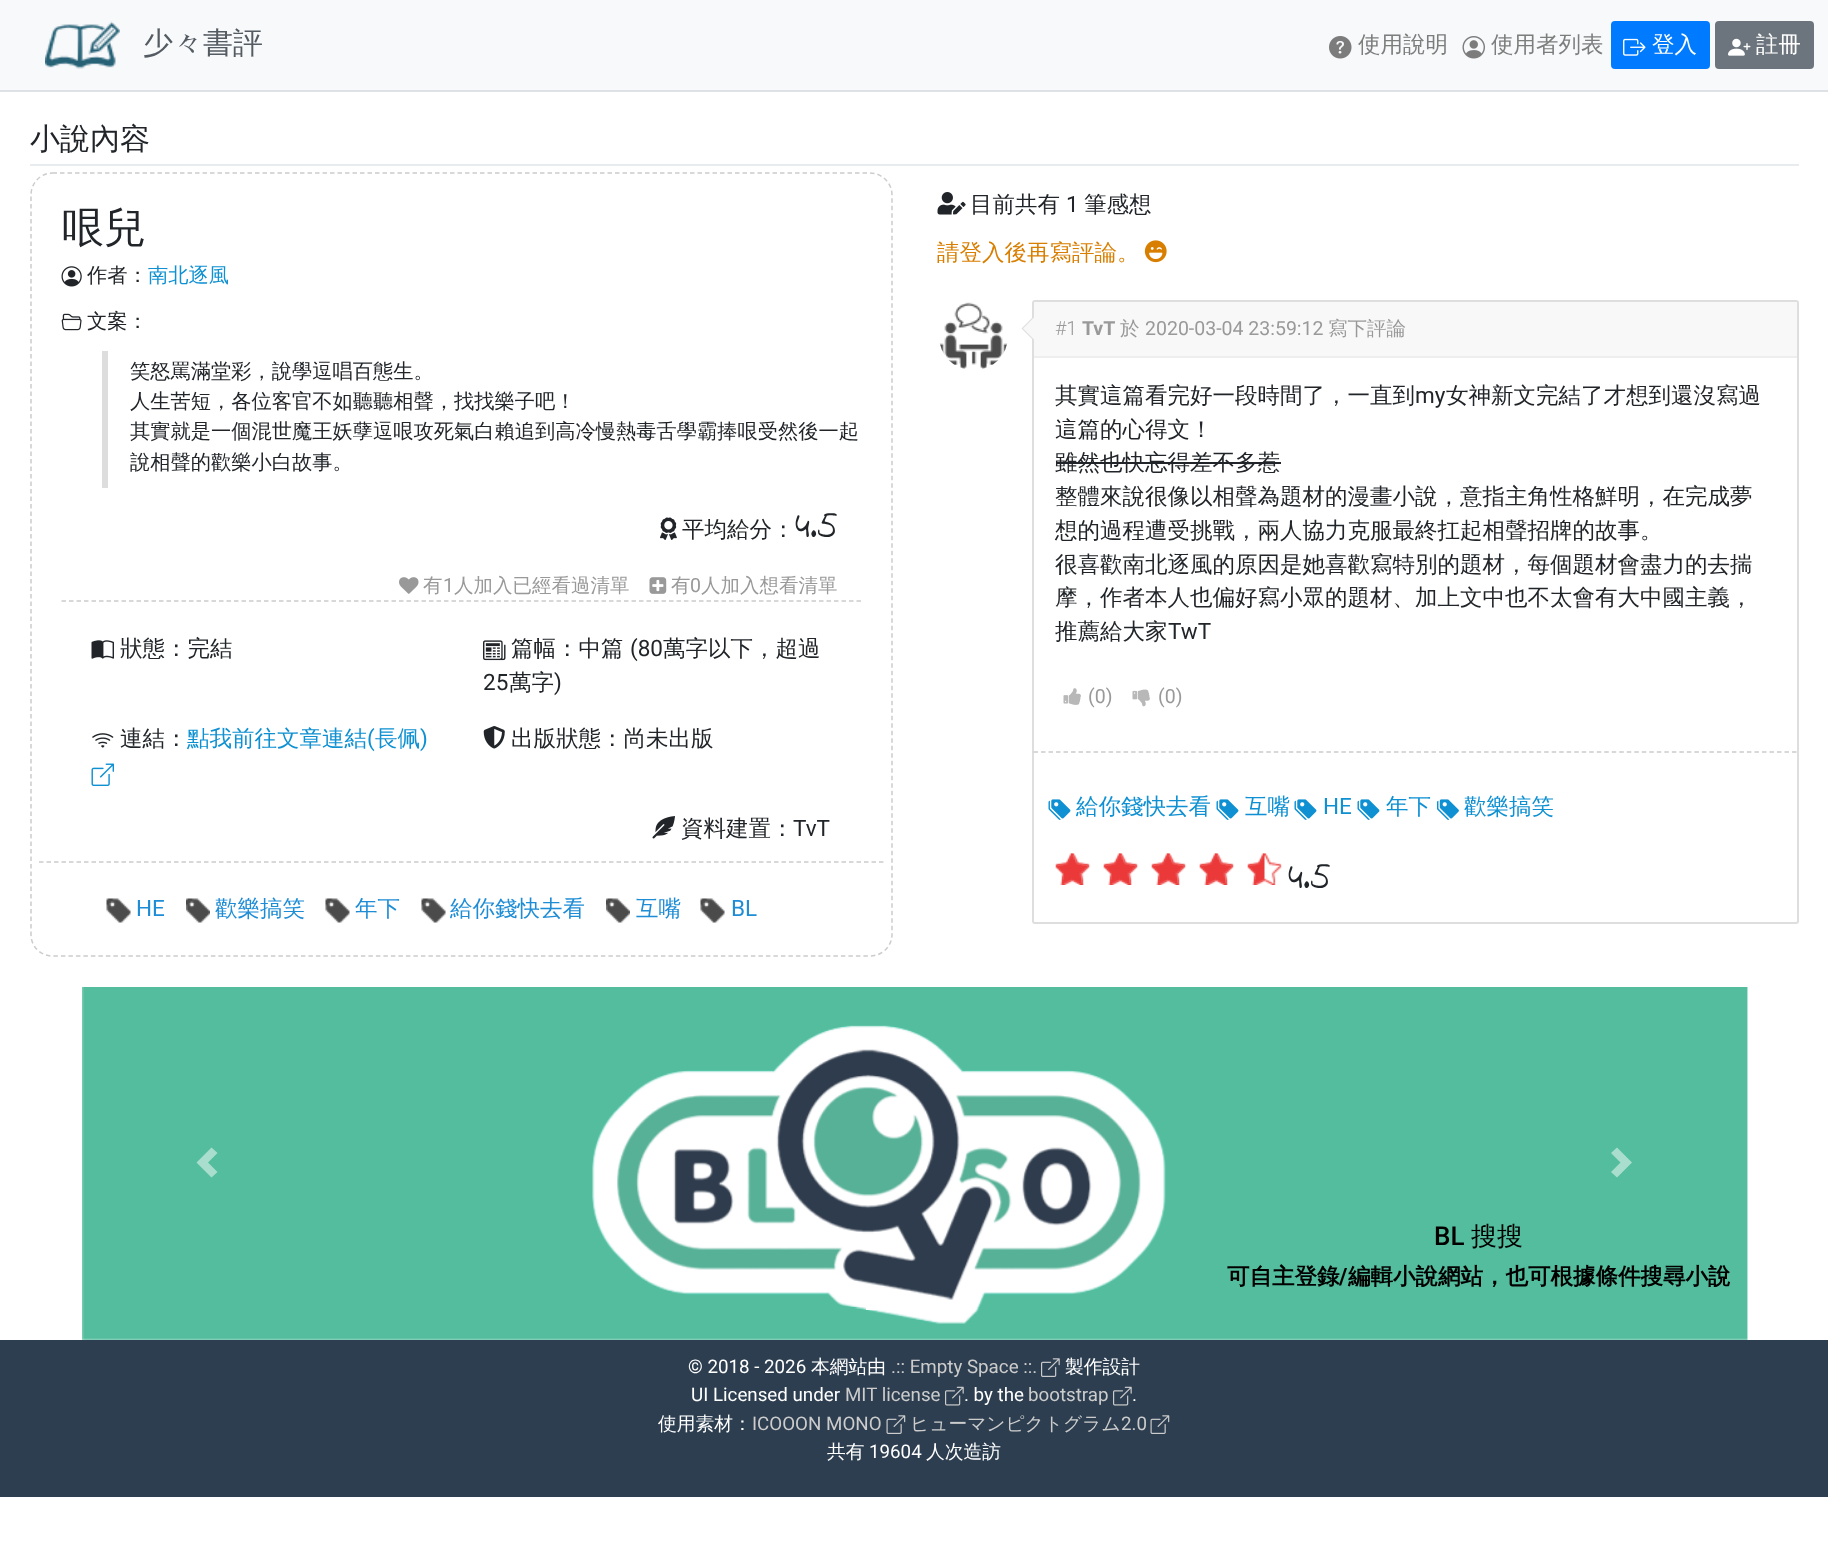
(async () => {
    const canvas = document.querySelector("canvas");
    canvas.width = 1828;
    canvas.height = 1553;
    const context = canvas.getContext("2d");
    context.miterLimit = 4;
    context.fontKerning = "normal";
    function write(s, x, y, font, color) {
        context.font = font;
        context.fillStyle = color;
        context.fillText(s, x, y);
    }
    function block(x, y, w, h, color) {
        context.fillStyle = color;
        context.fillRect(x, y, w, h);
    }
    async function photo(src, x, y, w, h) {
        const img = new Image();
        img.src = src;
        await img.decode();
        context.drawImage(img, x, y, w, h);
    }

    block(0, 0, 1828, 1553, "rgb(255, 255, 255)");
    block(0, 0, 1828, 90, "rgb(248, 249, 250)");
    block(0, 90, 1828, 2, "rgb(222, 226, 230)");
    await photo("media/1.png", 45, 21, 75, 48);
    write("少々書評", 143, 53, "500 30px WenQuanYi Zen Hei", "rgb(84, 91, 98)");
    await photo("media/2.png", 1329, 36, 23, 23);
    write("使用說明", 1358, 52, "500 22.5px WenQuanYi Zen Hei", "rgb(124, 125, 125)");
    await photo("media/3.png", 1462, 36, 23, 23);
    write("使用者列表", 1491, 52, "500 22.5px WenQuanYi Zen Hei", "rgb(124, 125, 125)");
    context.fillStyle = "rgb(0, 123, 255)";
    context.beginPath();
    context.roundRect(1612, 22, 97, 46, 3);
    context.fill();
    context.strokeStyle = "rgb(0, 123, 255)";
    context.lineWidth = 2;
    context.stroke();
    await photo("media/4.png", 1623, 38, 23, 18);
    write("登入", 1652, 52, "500 22.5px WenQuanYi Zen Hei", "rgb(255, 255, 255)");
    context.fillStyle = "rgb(108, 117, 125)";
    context.beginPath();
    context.roundRect(1716, 22, 97, 46, 3);
    context.fill();
    context.strokeStyle = "rgb(108, 117, 125)";
    context.stroke();
    await photo("media/5.png", 1728, 38, 23, 18);
    write("註冊", 1756, 52, "500 22.5px WenQuanYi Zen Hei", "rgb(255, 255, 255)");
    write("小說內容", 30, 149, "500 30px WenQuanYi Zen Hei", "rgb(33, 37, 41)");
    block(30, 164, 1769, 2, "rgb(233, 236, 239)");
    context.beginPath();
    context.moveTo(52.5, 173);
    context.lineTo(870, 173);
    context.bezierCurveTo(882, 173, 892, 183, 892, 195);
    context.lineTo(892, 934.5);
    context.bezierCurveTo(892, 946.5, 882, 956, 870, 956);
    context.lineTo(52.5, 956);
    context.bezierCurveTo(40.5, 956, 31, 946.5, 31, 934.5);
    context.lineTo(31, 195);
    context.bezierCurveTo(31, 183, 40.5, 173, 52.5, 173);
    context.closePath();
    context.strokeStyle = "rgb(204, 204, 204)";
    context.lineWidth = 1.5;
    context.setLineDash([4.5, 3]);
    context.stroke();
    write("哏兒", 62, 242, "500 42px WenQuanYi Zen Hei", "rgb(33, 37, 41)");
    context.beginPath();
    context.moveTo(61.5, 601);
    context.lineTo(861, 601);
    context.stroke();
    await photo("media/6.png", 61, 266, 21, 21);
    write("作者：", 87, 282, "500 20.25px WenQuanYi Zen Hei", "rgb(33, 37, 41)");
    write("南北逐風", 148, 282, "500 20.25px WenQuanYi Zen Hei", "rgb(14, 144, 210)");
    await photo("media/7.png", 61, 313, 21, 18);
    write("文案：", 87, 328, "500 20.25px WenQuanYi Zen Hei", "rgb(33, 37, 41)");
    block(102, 351, 6, 137, "rgb(221, 221, 221)");
    write("笑怒罵滿堂彩，說學逗唱百態生。", 130, 378, "500 20.25px WenQuanYi Zen Hei", "rgb(33, 37, 41)");
    write("人生苦短，各位客官不如聽聽相聲，找找樂子吧！", 130, 408, "500 20.25px WenQuanYi Zen Hei", "rgb(33, 37, 41)");
    write("其實就是一個混世魔王妖孽逗哏攻死氣白賴追到高冷慢熱毒舌學霸捧哏受然後一起", 130, 438, "500 20.25px WenQuanYi Zen Hei", "rgb(33, 37, 41)");
    write("說相聲的歡樂小白故事。", 130, 469, "500 20.25px WenQuanYi Zen Hei", "rgb(33, 37, 41)");
    await photo("media/8.png", 660, 517, 17, 23);
    write("平均給分：", 682, 537, "500 22.5px WenQuanYi Zen Hei", "rgb(33, 37, 41)");
    write("4.5", 795, 537, "36px Indie Flower", "rgb(33, 37, 41)");
    await photo("media/9.png", 399, 577, 20, 17);
    write("有", 423, 592, "500 19.5px WenQuanYi Zen Hei", "rgb(153, 153, 153)");
    write("1", 443, 592, "19.5px Roboto", "rgb(153, 153, 153)");
    write("人加入已經看過清單", 454, 592, "500 19.5px WenQuanYi Zen Hei", "rgb(153, 153, 153)");
    await photo("media/10.png", 649, 577, 18, 17);
    write("有", 671, 592, "500 19.5px WenQuanYi Zen Hei", "rgb(153, 153, 153)");
    write("0", 690, 592, "19.5px Roboto", "rgb(153, 153, 153)");
    write("人加入想看清單", 701, 592, "500 19.5px WenQuanYi Zen Hei", "rgb(153, 153, 153)");
    await photo("media/11.png", 91, 640, 23, 19);
    write("狀態：完結", 120, 656, "500 22.5px WenQuanYi Zen Hei", "rgb(33, 37, 41)");
    await photo("media/12.png", 483, 640, 23, 21);
    write("篇幅：中篇", 511, 656, "500 22.5px WenQuanYi Zen Hei", "rgb(33, 37, 41)");
    write("(80", 630, 656, "22.5px Roboto", "rgb(33, 37, 41)");
    write("萬字以下，超過", 663, 656, "500 22.5px WenQuanYi Zen Hei", "rgb(33, 37, 41)");
    write("25", 483, 690, "22.5px Roboto", "rgb(33, 37, 41)");
    write("萬字", 509, 690, "500 22.5px WenQuanYi Zen Hei", "rgb(33, 37, 41)");
    write(")", 554, 690, "22.5px Roboto", "rgb(33, 37, 41)");
    await photo("media/13.png", 92, 733, 22, 15);
    write("連結：", 120, 746, "500 22.5px WenQuanYi Zen Hei", "rgb(33, 37, 41)");
    write("點我前往文章連結", 187, 746, "500 22.5px WenQuanYi Zen Hei", "rgb(14, 144, 210)");
    write("(", 367, 746, "22.5px Roboto", "rgb(14, 144, 210)");
    write("長佩", 375, 746, "500 22.5px WenQuanYi Zen Hei", "rgb(14, 144, 210)");
    write(")", 420, 746, "22.5px Roboto", "rgb(14, 144, 210)");
    await photo("media/14.png", 91, 763, 23, 23);
    await photo("media/15.png", 483, 726, 22, 23);
    write("出版狀態：尚未出版", 511, 746, "500 22.5px WenQuanYi Zen Hei", "rgb(33, 37, 41)");
    context.beginPath();
    context.moveTo(39, 862);
    context.lineTo(883.5, 862);
    context.stroke();
    await photo("media/16.png", 652, 816, 23, 23);
    write("資料建置：", 681, 836, "500 22.5px WenQuanYi Zen Hei", "rgb(33, 37, 41)");
    write("TvT", 793, 836, "22.5px Roboto", "rgb(33, 37, 41)");
    await photo("media/17.png", 106, 898, 25, 25);
    write("HE", 136, 916, "22.5px Roboto", "rgb(31, 141, 214)");
    await photo("media/18.png", 186, 898, 24, 25);
    write("歡樂搞笑", 215, 916, "500 22.5px WenQuanYi Zen Hei", "rgb(31, 141, 214)");
    await photo("media/17.png", 325, 898, 25, 25);
    write("年下", 355, 916, "500 22.5px WenQuanYi Zen Hei", "rgb(31, 141, 214)");
    await photo("media/19.png", 421, 898, 25, 25);
    write("給你錢快去看", 450, 916, "500 22.5px WenQuanYi Zen Hei", "rgb(31, 141, 214)");
    await photo("media/18.png", 606, 898, 24, 25);
    write("互嘴", 636, 916, "500 22.5px WenQuanYi Zen Hei", "rgb(31, 141, 214)");
    await photo("media/19.png", 700, 898, 25, 25);
    write("BL", 731, 916, "22.5px Roboto", "rgb(31, 141, 214)");
    await photo("media/20.png", 937, 192, 29, 23);
    write("目前共有", 970, 212, "500 22.5px WenQuanYi Zen Hei", "rgb(33, 37, 41)");
    write("1", 1066, 212, "22.5px Roboto", "rgb(33, 37, 41)");
    write("筆感想", 1084, 212, "500 22.5px WenQuanYi Zen Hei", "rgb(33, 37, 41)");
    write("請登入後再寫評論。", 937, 260, "500 22.5px WenQuanYi Zen Hei", "rgb(216, 126, 1)");
    await photo("media/21.png", 1144, 240, 23, 23);
    await photo("media/22.png", 939, 302, 69, 67);
    context.beginPath();
    context.roundRect(1033, 301, 765, 622, 2);
    context.strokeStyle = "rgb(222, 222, 222)";
    context.lineWidth = 2;
    context.setLineDash([]);
    context.stroke();
    context.fillStyle = "rgb(222, 222, 222)";
    context.beginPath();
    context.moveTo(1033.5, 316.5);
    context.lineTo(1033.5, 340.5);
    context.lineTo(1021.5, 328.5);
    context.closePath();
    context.fill();
    block(1034, 302, 763, 54, "rgb(248, 248, 248)");
    context.beginPath();
    context.moveTo(1035, 316.5);
    context.lineTo(1035, 340.5);
    context.lineTo(1023, 328.5);
    context.closePath();
    context.fill();
    block(1034, 356, 763, 2, "rgb(238, 238, 238)");
    write("#1", 1055, 335, "300 19.5px Roboto", "rgb(153, 153, 153)");
    write("TvT", 1082, 335, "bold 19.5px Roboto", "rgb(153, 153, 153)");
    write("於", 1120, 335, "500 19.5px WenQuanYi Zen Hei", "rgb(153, 153, 153)");
    write("2020-03-04 23:59:12", 1145, 335, "19.5px Roboto", "rgb(153, 153, 153)");
    write("寫下評論", 1328, 335, "500 19.5px WenQuanYi Zen Hei", "rgb(153, 153, 153)");
    write("其實這篇看完好一段時間了，一直到", 1055, 403, "500 22.5px WenQuanYi Zen Hei", "rgb(33, 37, 41)");
    write("my", 1415, 403, "22.5px Roboto", "rgb(33, 37, 41)");
    write("女神新文完結了才想到還沒寫過", 1446, 403, "500 22.5px WenQuanYi Zen Hei", "rgb(33, 37, 41)");
    write("這篇的心得文！", 1055, 437, "500 22.5px WenQuanYi Zen Hei", "rgb(33, 37, 41)");
    write("雖然也快忘得差不多惹", 1055, 470, "500 22.5px WenQuanYi Zen Hei", "rgb(33, 37, 41)");
    block(1056, 462, 225, 2, "rgb(33, 37, 41)");
    write("整體來說很像以相聲為題材的漫畫小說，意指主角性格鮮明，在完成夢", 1055, 504, "500 22.5px WenQuanYi Zen Hei", "rgb(33, 37, 41)");
    write("想的過程遭受挑戰，兩人協力克服最終扛起相聲招牌的故事。", 1055, 538, "500 22.5px WenQuanYi Zen Hei", "rgb(33, 37, 41)");
    write("很喜歡南北逐風的原因是她喜歡寫特別的題材，每個題材會盡力的去揣", 1055, 572, "500 22.5px WenQuanYi Zen Hei", "rgb(33, 37, 41)");
    write("摩，作者本人也偏好寫小眾的題材、加上文中也不太會有大中國主義，", 1055, 605, "500 22.5px WenQuanYi Zen Hei", "rgb(33, 37, 41)");
    write("推薦給大家", 1055, 639, "500 22.5px WenQuanYi Zen Hei", "rgb(33, 37, 41)");
    write("TwT", 1168, 639, "22.5px Roboto", "rgb(33, 37, 41)");
    await photo("media/23.png", 1063, 688, 18, 17);
    write("(0)", 1088, 703, "19.5px Roboto", "rgb(153, 153, 153)");
    await photo("media/24.png", 1132, 689, 18, 18);
    write("(0)", 1158, 703, "19.5px Roboto", "rgb(153, 153, 153)");
    context.beginPath();
    context.moveTo(1033.5, 752);
    context.lineTo(1797, 752);
    context.strokeStyle = "rgb(204, 204, 204)";
    context.lineWidth = 1.5;
    context.setLineDash([4.5, 3.01]);
    context.stroke();
    await photo("media/25.png", 1048, 799, 23, 21);
    write("給你錢快去看", 1076, 814, "500 22.5px WenQuanYi Zen Hei", "rgb(14, 144, 210)");
    await photo("media/25.png", 1216, 799, 23, 21);
    write("互嘴", 1245, 814, "500 22.5px WenQuanYi Zen Hei", "rgb(14, 144, 210)");
    await photo("media/25.png", 1294, 799, 23, 21);
    write("HE", 1323, 814, "22.5px Roboto", "rgb(14, 144, 210)");
    await photo("media/25.png", 1357, 799, 23, 21);
    write("年下", 1386, 814, "500 22.5px WenQuanYi Zen Hei", "rgb(14, 144, 210)");
    await photo("media/26.png", 1437, 799, 22, 21);
    write("歡樂搞笑", 1464, 814, "500 22.5px WenQuanYi Zen Hei", "rgb(14, 144, 210)");
    await photo("media/27.png", 1055, 853, 227, 32);
    await photo("media/28.png", 1055, 853, 210, 32);
    write("4.5", 1288, 888, "36px Indie Flower", "rgb(33, 37, 41)");
    await photo("media/29.png", 82, 987, 1666, 353);
    context.fillStyle = "rgb(169, 222, 206)";
    context.beginPath();
    context.moveTo(211.5, 1147.5);
    context.lineTo(196.5, 1162.5);
    context.lineTo(211.5, 1177.5);
    context.lineTo(217.5, 1172);
    context.lineTo(208, 1162.5);
    context.lineTo(217.5, 1153);
    context.closePath();
    context.fill();
    context.beginPath();
    context.moveTo(1617, 1147.5);
    context.lineTo(1611, 1153);
    context.lineTo(1620.5, 1162.5);
    context.lineTo(1611, 1172);
    context.lineTo(1617, 1177.5);
    context.lineTo(1632, 1162.5);
    context.closePath();
    context.fill();
    write("BL", 1434, 1245, "500 26px Roboto", "rgb(0, 0, 0)");
    write("搜搜", 1471, 1245, "500 26px WenQuanYi Zen Hei", "rgb(0, 0, 0)");
    write("可自主登錄", 1227, 1284, "bold 22.5px WenQuanYi Zen Hei", "rgb(0, 0, 0)");
    write("/", 1339, 1284, "bold 22.5px Roboto", "rgb(0, 0, 0)");
    write("編輯小說網站，也可根據條件搜尋小說", 1348, 1284, "bold 22.5px WenQuanYi Zen Hei", "rgb(0, 0, 0)");
    block(866, 1307, 14, 3, "rgb(255, 255, 255)");
    block(0, 1340, 1828, 157, "rgb(45, 62, 80)");
    write("© 2018 - 2026", 688, 1373, "18.75px Roboto", "rgb(255, 255, 255)");
    write("本網站由", 811, 1373, "500 18.75px WenQuanYi Zen Hei", "rgb(255, 255, 255)");
    write(".:: Empty Space ::.", 891, 1373, "18.75px Roboto", "rgb(204, 204, 204)");
    await photo("media/30.png", 1041, 1358, 19, 19);
    write("製作設計", 1065, 1373, "500 18.75px WenQuanYi Zen Hei", "rgb(255, 255, 255)");
    write("UI Licensed under", 691, 1401, "18.75px Roboto", "rgb(255, 255, 255)");
    write("MIT license", 845, 1401, "18.75px Roboto", "rgb(204, 204, 204)");
    await photo("media/31.png", 945, 1386, 19, 20);
    write(". by the", 964, 1401, "18.75px Roboto", "rgb(255, 255, 255)");
    write("bootstrap", 1028, 1401, "18.75px Roboto", "rgb(204, 204, 204)");
    await photo("media/31.png", 1113, 1386, 19, 20);
    write(".", 1132, 1401, "18.75px Roboto", "rgb(255, 255, 255)");
    write("使用素材：", 658, 1430, "500 18.75px WenQuanYi Zen Hei", "rgb(255, 255, 255)");
    write("ICOOON MONO", 752, 1430, "18.75px Roboto", "rgb(204, 204, 204)");
    await photo("media/32.png", 886, 1415, 20, 19);
    write("ヒューマンピクトグラム", 910, 1430, "500 18.75px WenQuanYi Zen Hei", "rgb(204, 204, 204)");
    write("2.0", 1121, 1430, "18.75px Roboto", "rgb(204, 204, 204)");
    await photo("media/32.png", 1150, 1415, 20, 19);
    write("共有", 827, 1458, "500 18.75px WenQuanYi Zen Hei", "rgb(255, 255, 255)");
    write("19604", 869, 1458, "18.75px Roboto", "rgb(255, 255, 255)");
    write("人次造訪", 926, 1458, "500 18.75px WenQuanYi Zen Hei", "rgb(255, 255, 255)");
})();
